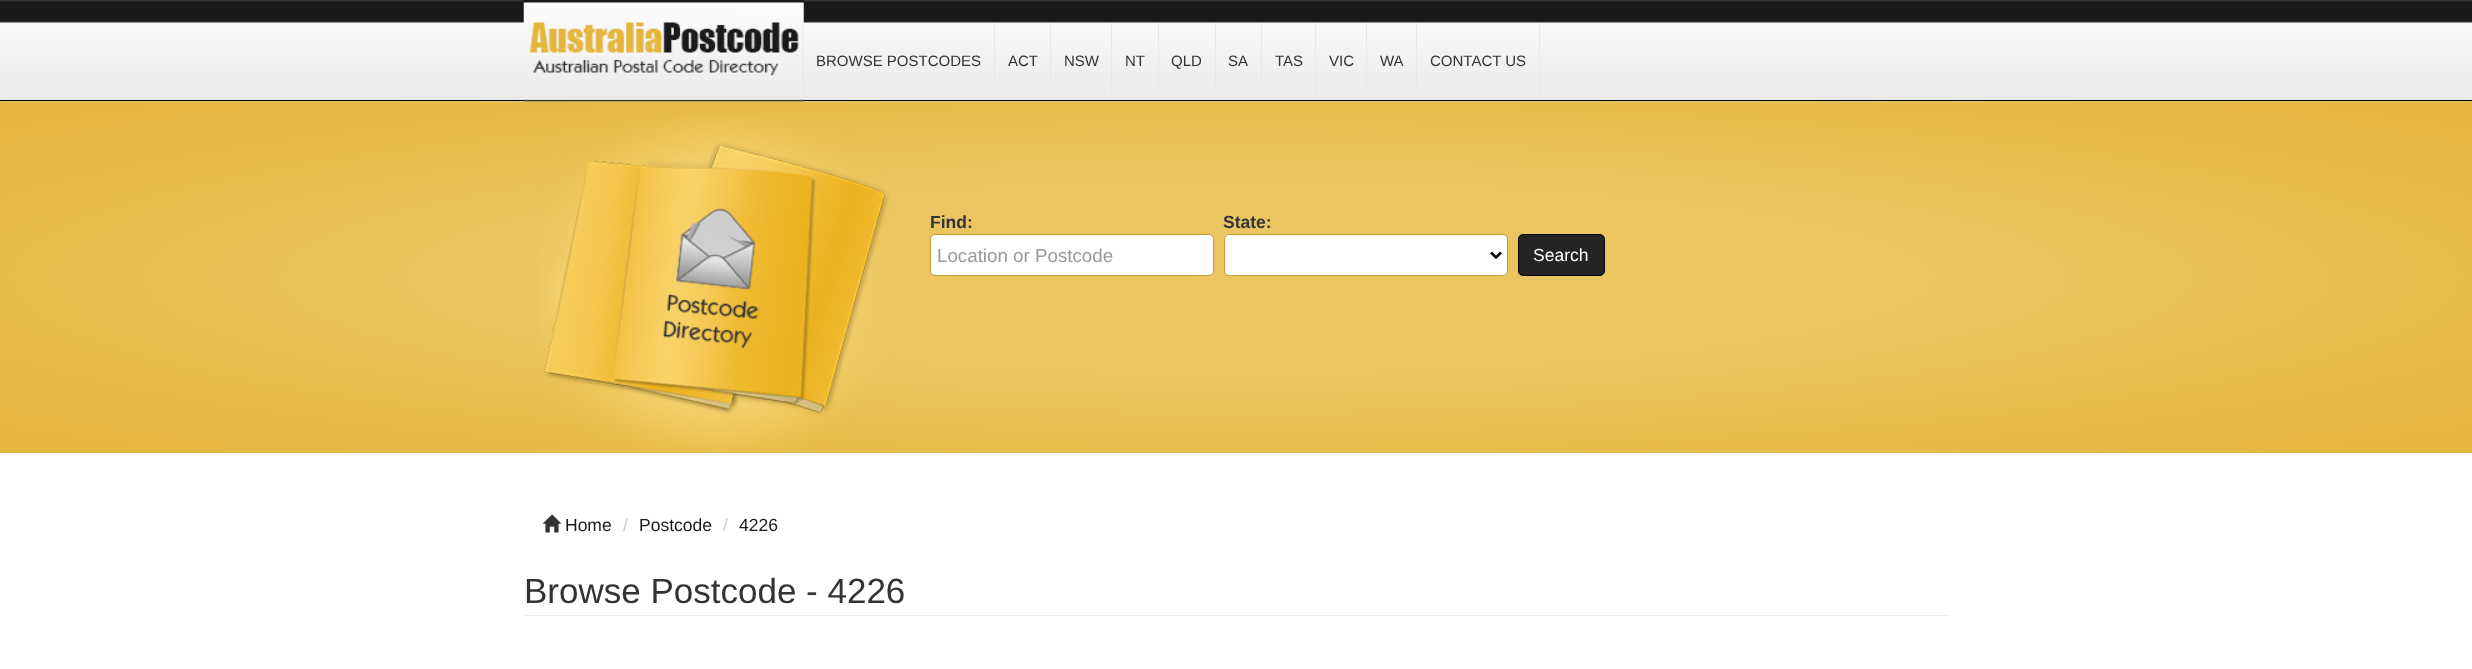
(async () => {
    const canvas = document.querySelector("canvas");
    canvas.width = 2472;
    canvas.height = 669;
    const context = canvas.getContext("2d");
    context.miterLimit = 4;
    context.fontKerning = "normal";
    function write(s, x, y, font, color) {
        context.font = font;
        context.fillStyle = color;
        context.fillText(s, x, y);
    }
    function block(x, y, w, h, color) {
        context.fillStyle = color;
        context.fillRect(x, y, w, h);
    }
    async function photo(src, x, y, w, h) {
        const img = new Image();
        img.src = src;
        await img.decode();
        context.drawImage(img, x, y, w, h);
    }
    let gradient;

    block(0, 0, 2472, 669, "rgb(255, 255, 255)");
    gradient = context.createRadialGradient(1236, 1952.4, 0, 1236, 1952.4, 1748);
    gradient.addColorStop(0.4, "rgb(234, 197, 96)");
    gradient.addColorStop(1, "rgb(229, 181, 59)");
    context.fillStyle = gradient;
    context.beginPath();
    context.rect(0, 101, 2472, 352);
    context.save();
    context.clip();
    context.scale(1, 248 / 1748);
    context.fillRect(0, 0, 2472, 4716);
    context.restore();
    await photo("media/1.png", 0, 0, 2472, 102);
    block(0, 100, 2472, 1, "rgb(0, 0, 0)");
    await photo("media/2.png", 523, 0, 281, 102);
    block(994, 23, 1, 75, "rgb(232, 232, 232)");
    write("BROWSE POSTCODES", 816, 66, "15px Liberation Sans", "rgb(51, 51, 51)");
    block(1050, 23, 1, 75, "rgb(232, 232, 232)");
    write("ACT", 1008, 66, "15px Liberation Sans", "rgb(51, 51, 51)");
    block(1111, 23, 1, 75, "rgb(232, 232, 232)");
    write("NSW", 1064, 66, "15px Liberation Sans", "rgb(51, 51, 51)");
    block(1158, 23, 1, 75, "rgb(232, 232, 232)");
    write("NT", 1125, 66, "15px Liberation Sans", "rgb(51, 51, 51)");
    block(1215, 23, 1, 75, "rgb(232, 232, 232)");
    write("QLD", 1171, 66, "15px Liberation Sans", "rgb(51, 51, 51)");
    block(1261, 23, 1, 75, "rgb(232, 232, 232)");
    write("SA", 1228, 66, "15px Liberation Sans", "rgb(51, 51, 51)");
    block(1315, 23, 1, 75, "rgb(232, 232, 232)");
    write("TAS", 1275, 66, "15px Liberation Sans", "rgb(51, 51, 51)");
    block(1366, 23, 1, 75, "rgb(232, 232, 232)");
    write("VIC", 1329, 66, "15px Liberation Sans", "rgb(51, 51, 51)");
    block(1416, 23, 1, 75, "rgb(232, 232, 232)");
    write("WA", 1380, 66, "15px Liberation Sans", "rgb(51, 51, 51)");
    block(1539, 23, 1, 75, "rgb(232, 232, 232)");
    write("CONTACT US", 1430, 66, "15px Liberation Sans", "rgb(51, 51, 51)");
    await photo("media/3.png", 538, 118, 351, 334);
    write("Find:", 930, 228, "bold 17.5px Liberation Sans", "rgb(51, 51, 59)");
    context.fillStyle = "rgb(255, 255, 255)";
    context.beginPath();
    context.roundRect(930.5, 234.5, 283, 41, 4.5);
    context.fill();
    context.strokeStyle = "rgb(194, 155, 52)";
    context.stroke();
    write("Location or Postcode", 937, 262, "18.75px Liberation Sans", "rgb(153, 153, 153)");
    write("State:", 1223, 228, "bold 17.5px Liberation Sans", "rgb(51, 51, 59)");
    context.fillStyle = "rgb(255, 255, 255)";
    context.beginPath();
    context.roundRect(1224.5, 234.5, 283, 41, 4.5);
    context.fill();
    context.stroke();
    context.beginPath();
    context.moveTo(1491, 252.5);
    context.lineTo(1496, 257.5);
    context.lineTo(1501, 252.5);
    context.strokeStyle = "rgb(0, 0, 0)";
    context.lineWidth = 2.5;
    context.stroke();
    context.fillStyle = "rgb(36, 36, 36)";
    context.beginPath();
    context.roundRect(1518.5, 234.5, 86, 41, 4.5);
    context.fill();
    context.lineWidth = 1;
    context.stroke();
    write("Search", 1533, 261, "17.5px Liberation Sans", "rgb(255, 255, 255)");
    await photo("media/4.png", 542, 514, 20, 19);
    write("Home", 565, 531, "17.5px Liberation Sans", "rgb(25, 25, 25)");
    write("/", 623, 531, "17.5px Liberation Sans", "rgb(204, 204, 204)");
    write("Postcode", 639, 531, "17.5px Liberation Sans", "rgb(25, 25, 25)");
    write("/", 723, 531, "17.5px Liberation Sans", "rgb(204, 204, 204)");
    write("4226", 739, 531, "17.5px Liberation Sans", "rgb(25, 25, 25)");
    block(524, 615, 1425, 1, "rgb(238, 238, 238)");
    write("Browse Postcode - 4226", 524, 603, "35px Liberation Sans", "rgb(51, 51, 51)");
})();
